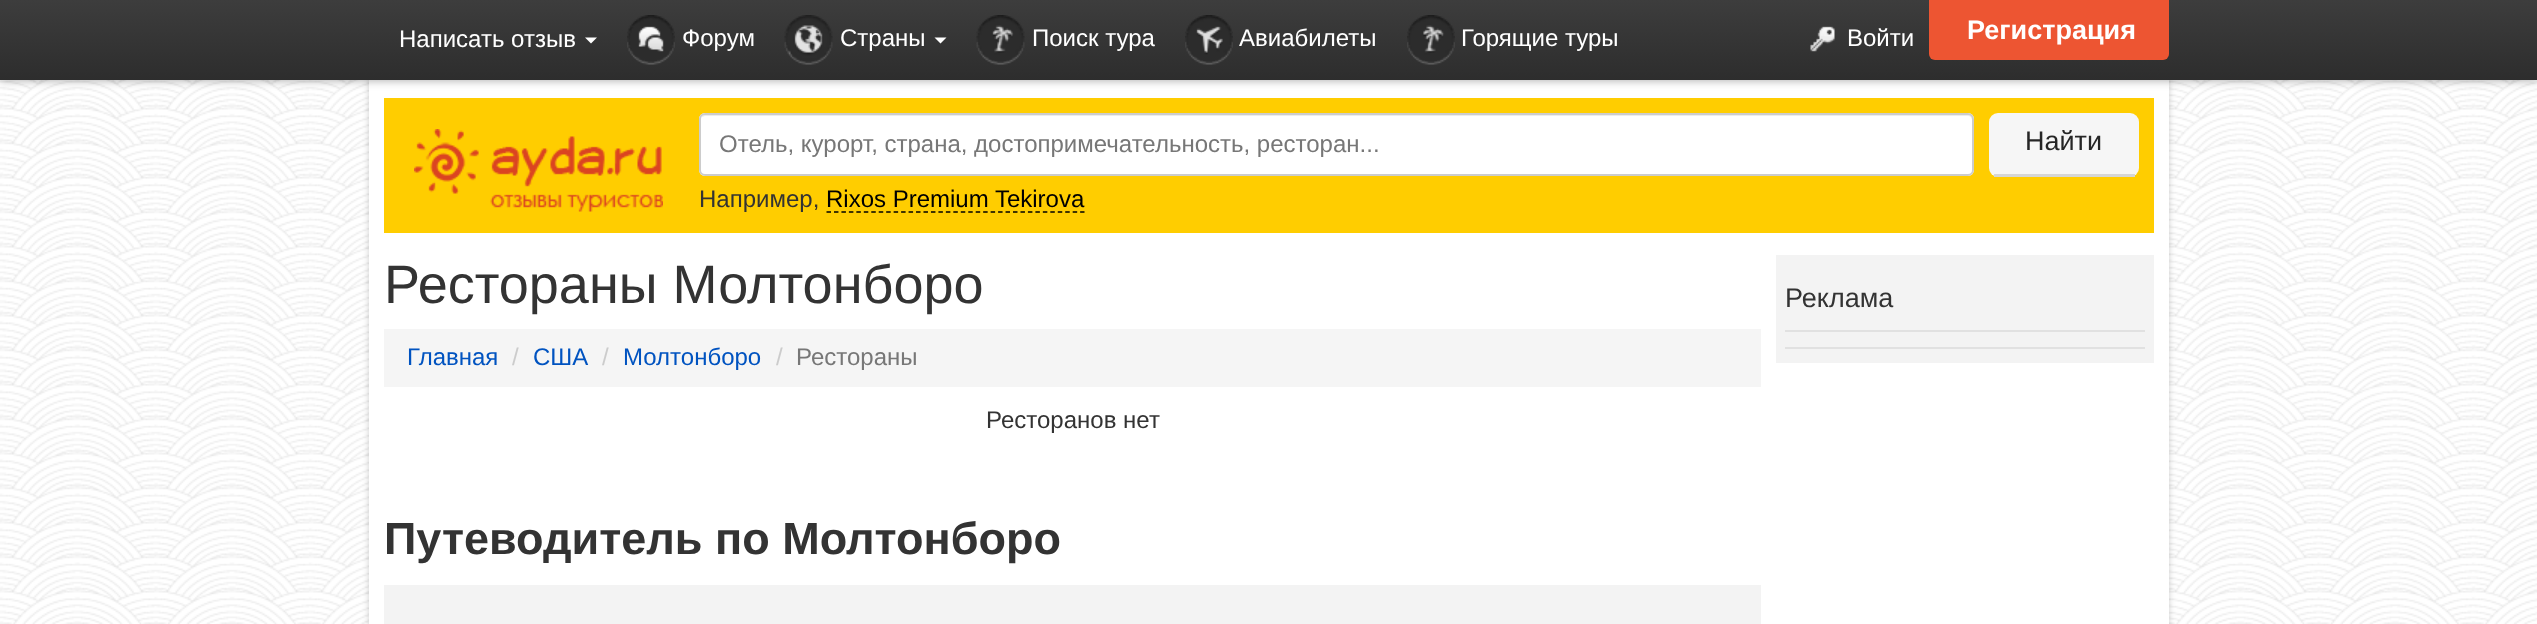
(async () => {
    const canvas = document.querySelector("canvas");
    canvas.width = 2537;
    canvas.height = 624;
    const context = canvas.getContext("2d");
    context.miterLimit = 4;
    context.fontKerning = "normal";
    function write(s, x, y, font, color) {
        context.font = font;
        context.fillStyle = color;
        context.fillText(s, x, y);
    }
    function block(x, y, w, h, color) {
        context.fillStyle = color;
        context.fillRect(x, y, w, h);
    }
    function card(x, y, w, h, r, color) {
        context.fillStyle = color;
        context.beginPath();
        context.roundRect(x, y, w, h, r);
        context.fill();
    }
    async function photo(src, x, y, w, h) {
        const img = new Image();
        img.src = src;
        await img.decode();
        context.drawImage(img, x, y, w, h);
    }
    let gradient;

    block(0, 0, 2537, 624, "rgb(255, 255, 255)");
    await photo("media/1.png", 0, 80, 2537, 544);
    context.fillStyle = "rgba(0, 0, 0, 0.2)";
    context.filter = "blur(3px)";
    context.beginPath();
    context.rect(369, 75, 1800, 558);
    context.fill();
    context.filter = "none";
    block(369, 80, 1800, 544, "rgb(255, 255, 255)");
    context.fillStyle = "rgba(0, 0, 0, 0.3)";
    context.filter = "blur(4.5px)";
    context.beginPath();
    context.rect(0, 2, 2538, 79);
    context.fill();
    context.filter = "none";
    gradient = context.createLinearGradient(1269, 0, 1269, 80);
    gradient.addColorStop(0, "rgb(61, 61, 61)");
    gradient.addColorStop(1, "rgb(45, 45, 45)");
    context.fillStyle = gradient;
    context.fillRect(0, 0, 2537, 80);
    write("Написать отзыв", 399, 47, "24px Liberation Sans", "rgb(255, 255, 255)");
    context.beginPath();
    context.moveTo(585, 37.5);
    context.lineTo(597, 37.5);
    context.lineTo(591, 43.5);
    context.closePath();
    context.fill();
    await photo("media/2.png", 627, 15, 48, 50);
    write("Форум", 682, 46, "24px Liberation Sans", "rgb(255, 255, 255)");
    await photo("media/3.png", 784, 15, 49, 50);
    write("Страны", 840, 46, "24px Liberation Sans", "rgb(255, 255, 255)");
    context.beginPath();
    context.moveTo(934.5, 37.5);
    context.lineTo(946.5, 37.5);
    context.lineTo(940.5, 43.5);
    context.closePath();
    context.fill();
    await photo("media/4.png", 976, 15, 49, 50);
    write("Поиск тура", 1032, 46, "24px Liberation Sans", "rgb(255, 255, 255)");
    await photo("media/5.png", 1185, 15, 48, 50);
    write("Авиабилеты", 1239, 46, "24px Liberation Sans", "rgb(255, 255, 255)");
    await photo("media/6.png", 1407, 15, 48, 50);
    write("Горящие туры", 1461, 46, "24px Liberation Sans", "rgb(255, 255, 255)");
    await photo("media/7.png", 1810, 26, 25, 26);
    write("Войти", 1847, 46, "24px Liberation Sans", "rgb(255, 255, 255)");
    context.fillStyle = "rgb(237, 85, 50)";
    context.beginPath();
    context.roundRect(1929, 0, 240, 60, [0, 0, 6, 6]);
    context.fill();
    write("Регистрация", 1967, 39, "bold 27px Liberation Sans", "rgb(255, 255, 255)");
    block(384, 98, 1770, 135, "rgb(255, 205, 0)");
    await photo("media/8.png", 414, 129, 249, 83);
    card(699, 113, 1275, 63, 6, "rgb(255, 255, 255)");
    context.fillStyle = "rgb(236, 236, 236)";
    context.beginPath();
    context.moveTo(705, 116);
    context.lineTo(1968, 116);
    context.bezierCurveTo(1970, 116, 1972, 118, 1972, 120);
    context.lineTo(1972, 172);
    context.bezierCurveTo(1973, 171, 1973, 170, 1973, 169);
    context.lineTo(1973, 119);
    context.bezierCurveTo(1973, 116, 1971, 114, 1968, 114);
    context.lineTo(706, 114);
    context.bezierCurveTo(704, 114, 702, 116, 701, 118);
    context.bezierCurveTo(702, 117, 704, 116, 705, 116);
    context.closePath();
    context.fill();
    context.beginPath();
    context.roundRect(700, 114, 1273, 61, 5);
    context.strokeStyle = "rgb(204, 204, 204)";
    context.lineWidth = 2;
    context.stroke();
    write("Отель, курорт, страна, достопримечательность, ресторан...", 719, 152, "24px Liberation Sans", "rgb(119, 119, 119)");
    card(1989, 113, 150, 64, 9, "rgb(246, 246, 246)");
    block(1994, 174, 141, 3, "rgb(214, 214, 214)");
    write("Найти", 2025, 150, "27px Liberation Sans", "rgb(38, 38, 38)");
    write("Например,", 699, 207, "24px Liberation Sans", "rgb(51, 51, 51)");
    write("Rixos Premium Tekirova", 826, 207, "24px Liberation Sans", "rgb(0, 0, 0)");
    context.beginPath();
    context.moveTo(826.5, 212);
    context.lineTo(1084.5, 212);
    context.strokeStyle = "rgb(0, 0, 0)";
    context.lineWidth = 1.5;
    context.setLineDash([4.5, 2.96]);
    context.stroke();
    write("Рестораны Молтонборо", 384, 303, "54px Liberation Sans", "rgb(51, 51, 51)");
    block(384, 329, 1377, 58, "rgb(245, 245, 245)");
    write("Главная", 407, 365, "24px Liberation Sans", "rgb(0, 83, 192)");
    write("/", 512, 365, "24px Liberation Sans", "rgb(204, 204, 204)");
    write("США", 533, 365, "24px Liberation Sans", "rgb(0, 83, 192)");
    write("/", 602, 365, "24px Liberation Sans", "rgb(204, 204, 204)");
    write("Молтонборо", 623, 365, "24px Liberation Sans", "rgb(0, 83, 192)");
    write("/", 776, 365, "24px Liberation Sans", "rgb(204, 204, 204)");
    write("Рестораны", 796, 365, "24px Liberation Sans", "rgb(119, 119, 119)");
    write("Ресторанов нет", 986, 428, "24px Liberation Sans", "rgb(51, 51, 51)");
    write("Путеводитель по Молтонборо", 384, 554, "bold 45px Liberation Sans", "rgb(51, 51, 51)");
    block(384, 585, 1377, 39, "rgb(243, 243, 243)");
    block(1776, 255, 378, 108, "rgb(243, 243, 243)");
    write("Реклама", 1785, 307, "27px Liberation Sans", "rgb(51, 51, 51)");
    block(1785, 330, 360, 2, "rgb(225, 225, 225)");
    block(1785, 347, 360, 2, "rgb(225, 225, 225)");
})();
